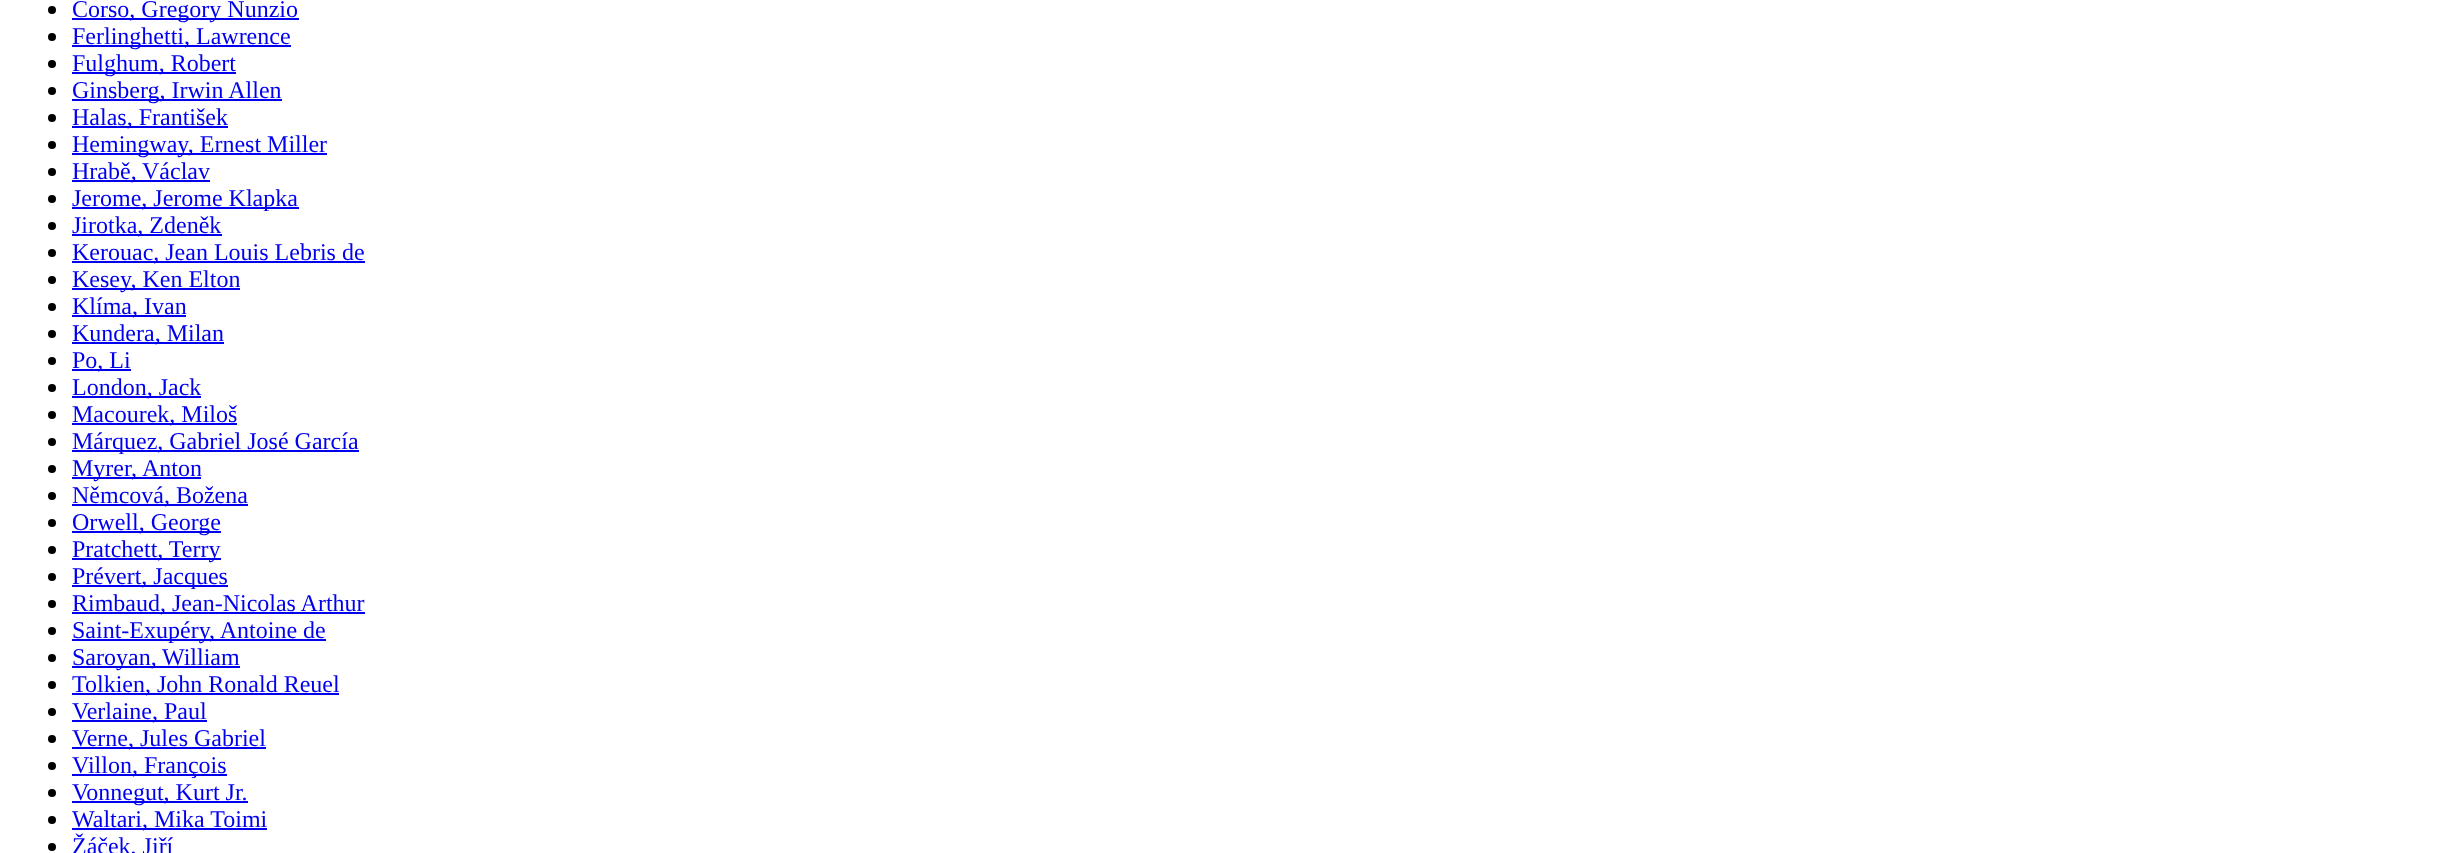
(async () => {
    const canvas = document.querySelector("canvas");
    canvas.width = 2459;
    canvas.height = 853;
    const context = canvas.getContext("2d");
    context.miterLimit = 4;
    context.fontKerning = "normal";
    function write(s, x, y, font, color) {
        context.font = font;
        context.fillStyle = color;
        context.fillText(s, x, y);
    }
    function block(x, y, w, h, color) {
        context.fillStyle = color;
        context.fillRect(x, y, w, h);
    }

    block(0, 0, 2459, 853, "rgb(255, 255, 255)");
    context.fillStyle = "rgb(0, 0, 0)";
    context.beginPath();
    context.arc(52, 10, 4, 0, Math.PI * 2);
    context.fill();
    block(72, 18, 227, 2, "rgb(0, 0, 238)");
    write("Corso, Gregory Nunzio", 72, 17, "24px Liberation Serif", "rgb(0, 0, 238)");
    context.fillStyle = "rgb(0, 0, 0)";
    context.beginPath();
    context.arc(52, 37, 4, 0, Math.PI * 2);
    context.fill();
    block(72, 45, 219, 2, "rgb(0, 0, 238)");
    write("Ferlinghetti, Lawrence", 72, 44, "24px Liberation Serif", "rgb(0, 0, 238)");
    context.fillStyle = "rgb(0, 0, 0)";
    context.beginPath();
    context.arc(52, 64, 4, 0, Math.PI * 2);
    context.fill();
    block(72, 72, 164, 2, "rgb(0, 0, 238)");
    write("Fulghum, Robert", 72, 71, "24px Liberation Serif", "rgb(0, 0, 238)");
    context.fillStyle = "rgb(0, 0, 0)";
    context.beginPath();
    context.arc(52, 91, 4, 0, Math.PI * 2);
    context.fill();
    block(72, 99, 210, 2, "rgb(0, 0, 238)");
    write("Ginsberg, Irwin Allen", 72, 98, "24px Liberation Serif", "rgb(0, 0, 238)");
    context.fillStyle = "rgb(0, 0, 0)";
    context.beginPath();
    context.arc(52, 118, 4, 0, Math.PI * 2);
    context.fill();
    block(72, 126, 156, 2, "rgb(0, 0, 238)");
    write("Halas, František", 72, 125, "24px Liberation Serif", "rgb(0, 0, 238)");
    context.fillStyle = "rgb(0, 0, 0)";
    context.beginPath();
    context.arc(52, 145, 4, 0, Math.PI * 2);
    context.fill();
    block(72, 153, 255, 2, "rgb(0, 0, 238)");
    write("Hemingway, Ernest Miller", 72, 152, "24px Liberation Serif", "rgb(0, 0, 238)");
    context.fillStyle = "rgb(0, 0, 0)";
    context.beginPath();
    context.arc(52, 172, 4, 0, Math.PI * 2);
    context.fill();
    block(72, 180, 138, 2, "rgb(0, 0, 238)");
    write("Hrabě,", 72, 179, "24px Liberation Serif", "rgb(0, 0, 238)");
    write("Václav", 142, 179, "24px Liberation Serif", "rgb(0, 0, 238)");
    context.fillStyle = "rgb(0, 0, 0)";
    context.beginPath();
    context.arc(52, 199, 4, 0, Math.PI * 2);
    context.fill();
    block(72, 207, 227, 2, "rgb(0, 0, 238)");
    write("Jerome, Jerome Klapka", 72, 206, "24px Liberation Serif", "rgb(0, 0, 238)");
    context.fillStyle = "rgb(0, 0, 0)";
    context.beginPath();
    context.arc(52, 226, 4, 0, Math.PI * 2);
    context.fill();
    block(72, 234, 150, 2, "rgb(0, 0, 238)");
    write("Jirotka, Zdeněk", 72, 233, "24px Liberation Serif", "rgb(0, 0, 238)");
    context.fillStyle = "rgb(0, 0, 0)";
    context.beginPath();
    context.arc(52, 253, 4, 0, Math.PI * 2);
    context.fill();
    block(72, 261, 293, 2, "rgb(0, 0, 238)");
    write("Kerouac, Jean Louis Lebris de", 72, 260, "24px Liberation Serif", "rgb(0, 0, 238)");
    context.fillStyle = "rgb(0, 0, 0)";
    context.beginPath();
    context.arc(52, 280, 4, 0, Math.PI * 2);
    context.fill();
    block(72, 288, 168, 2, "rgb(0, 0, 238)");
    write("Kesey, Ken Elton", 72, 287, "24px Liberation Serif", "rgb(0, 0, 238)");
    context.fillStyle = "rgb(0, 0, 0)";
    context.beginPath();
    context.arc(52, 307, 4, 0, Math.PI * 2);
    context.fill();
    block(72, 315, 114, 2, "rgb(0, 0, 238)");
    write("Klíma, Ivan", 72, 314, "24px Liberation Serif", "rgb(0, 0, 238)");
    context.fillStyle = "rgb(0, 0, 0)";
    context.beginPath();
    context.arc(52, 334, 4, 0, Math.PI * 2);
    context.fill();
    block(72, 342, 152, 2, "rgb(0, 0, 238)");
    write("Kundera, Milan", 72, 341, "24px Liberation Serif", "rgb(0, 0, 238)");
    context.fillStyle = "rgb(0, 0, 0)";
    context.beginPath();
    context.arc(52, 361, 4, 0, Math.PI * 2);
    context.fill();
    block(72, 369, 59, 2, "rgb(0, 0, 238)");
    write("Po, Li", 72, 368, "24px Liberation Serif", "rgb(0, 0, 238)");
    context.fillStyle = "rgb(0, 0, 0)";
    context.beginPath();
    context.arc(52, 388, 4, 0, Math.PI * 2);
    context.fill();
    block(72, 396, 129, 2, "rgb(0, 0, 238)");
    write("London, Jack", 72, 395, "24px Liberation Serif", "rgb(0, 0, 238)");
    context.fillStyle = "rgb(0, 0, 0)";
    context.beginPath();
    context.arc(52, 415, 4, 0, Math.PI * 2);
    context.fill();
    block(72, 423, 165, 2, "rgb(0, 0, 238)");
    write("Macourek, Miloš", 72, 422, "24px Liberation Serif", "rgb(0, 0, 238)");
    context.fillStyle = "rgb(0, 0, 0)";
    context.beginPath();
    context.arc(52, 442, 4, 0, Math.PI * 2);
    context.fill();
    block(72, 450, 287, 2, "rgb(0, 0, 238)");
    write("Márquez, Gabriel José García", 72, 449, "24px Liberation Serif", "rgb(0, 0, 238)");
    context.fillStyle = "rgb(0, 0, 0)";
    context.beginPath();
    context.arc(52, 469, 4, 0, Math.PI * 2);
    context.fill();
    block(72, 477, 129, 2, "rgb(0, 0, 238)");
    write("Myrer,", 72, 476, "24px Liberation Serif", "rgb(0, 0, 238)");
    write("Anton", 142, 476, "24px Liberation Serif", "rgb(0, 0, 238)");
    context.fillStyle = "rgb(0, 0, 0)";
    context.beginPath();
    context.arc(52, 496, 4, 0, Math.PI * 2);
    context.fill();
    block(72, 504, 176, 2, "rgb(0, 0, 238)");
    write("Němcová, Božena", 72, 503, "24px Liberation Serif", "rgb(0, 0, 238)");
    context.fillStyle = "rgb(0, 0, 0)";
    context.beginPath();
    context.arc(52, 523, 4, 0, Math.PI * 2);
    context.fill();
    block(72, 531, 149, 2, "rgb(0, 0, 238)");
    write("Orwell, George", 72, 530, "24px Liberation Serif", "rgb(0, 0, 238)");
    context.fillStyle = "rgb(0, 0, 0)";
    context.beginPath();
    context.arc(52, 550, 4, 0, Math.PI * 2);
    context.fill();
    block(72, 558, 149, 2, "rgb(0, 0, 238)");
    write("Pratchett, Terry", 72, 557, "24px Liberation Serif", "rgb(0, 0, 238)");
    context.fillStyle = "rgb(0, 0, 0)";
    context.beginPath();
    context.arc(52, 577, 4, 0, Math.PI * 2);
    context.fill();
    block(72, 585, 156, 2, "rgb(0, 0, 238)");
    write("Prévert, Jacques", 72, 584, "24px Liberation Serif", "rgb(0, 0, 238)");
    context.fillStyle = "rgb(0, 0, 0)";
    context.beginPath();
    context.arc(52, 604, 4, 0, Math.PI * 2);
    context.fill();
    block(72, 612, 293, 2, "rgb(0, 0, 238)");
    write("Rimbaud, Jean-Nicolas Arthur", 72, 611, "24px Liberation Serif", "rgb(0, 0, 238)");
    context.fillStyle = "rgb(0, 0, 0)";
    context.beginPath();
    context.arc(52, 631, 4, 0, Math.PI * 2);
    context.fill();
    block(72, 639, 254, 2, "rgb(0, 0, 238)");
    write("Saint-Exupéry, Antoine de", 72, 638, "24px Liberation Serif", "rgb(0, 0, 238)");
    context.fillStyle = "rgb(0, 0, 0)";
    context.beginPath();
    context.arc(52, 658, 4, 0, Math.PI * 2);
    context.fill();
    block(72, 666, 168, 2, "rgb(0, 0, 238)");
    write("Saroyan,", 72, 665, "24px Liberation Serif", "rgb(0, 0, 238)");
    write("William", 162, 665, "24px Liberation Serif", "rgb(0, 0, 238)");
    context.fillStyle = "rgb(0, 0, 0)";
    context.beginPath();
    context.arc(52, 685, 4, 0, Math.PI * 2);
    context.fill();
    block(72, 693, 267, 2, "rgb(0, 0, 238)");
    write("Tolkien, John Ronald Reuel", 72, 692, "24px Liberation Serif", "rgb(0, 0, 238)");
    context.fillStyle = "rgb(0, 0, 0)";
    context.beginPath();
    context.arc(52, 712, 4, 0, Math.PI * 2);
    context.fill();
    block(72, 720, 135, 2, "rgb(0, 0, 238)");
    write("Verlaine, Paul", 72, 719, "24px Liberation Serif", "rgb(0, 0, 238)");
    context.fillStyle = "rgb(0, 0, 0)";
    context.beginPath();
    context.arc(52, 739, 4, 0, Math.PI * 2);
    context.fill();
    block(72, 747, 194, 2, "rgb(0, 0, 238)");
    write("Verne, Jules Gabriel", 72, 746, "24px Liberation Serif", "rgb(0, 0, 238)");
    context.fillStyle = "rgb(0, 0, 0)";
    context.beginPath();
    context.arc(52, 766, 4, 0, Math.PI * 2);
    context.fill();
    block(72, 774, 155, 2, "rgb(0, 0, 238)");
    write("Villon, François", 72, 773, "24px Liberation Serif", "rgb(0, 0, 238)");
    context.fillStyle = "rgb(0, 0, 0)";
    context.beginPath();
    context.arc(52, 793, 4, 0, Math.PI * 2);
    context.fill();
    block(72, 801, 176, 2, "rgb(0, 0, 238)");
    write("Vonnegut, Kurt Jr.", 72, 800, "24px Liberation Serif", "rgb(0, 0, 238)");
    context.fillStyle = "rgb(0, 0, 0)";
    context.beginPath();
    context.arc(52, 820, 4, 0, Math.PI * 2);
    context.fill();
    block(72, 828, 195, 2, "rgb(0, 0, 238)");
    write("Waltari, Mika Toimi", 72, 827, "24px Liberation Serif", "rgb(0, 0, 238)");
    context.fillStyle = "rgb(0, 0, 0)";
    context.beginPath();
    context.arc(52, 847, 4, 0, Math.PI * 2);
    context.fill();
    write("Žáček, Jiří", 72, 854, "24px Liberation Serif", "rgb(0, 0, 238)");
})();
